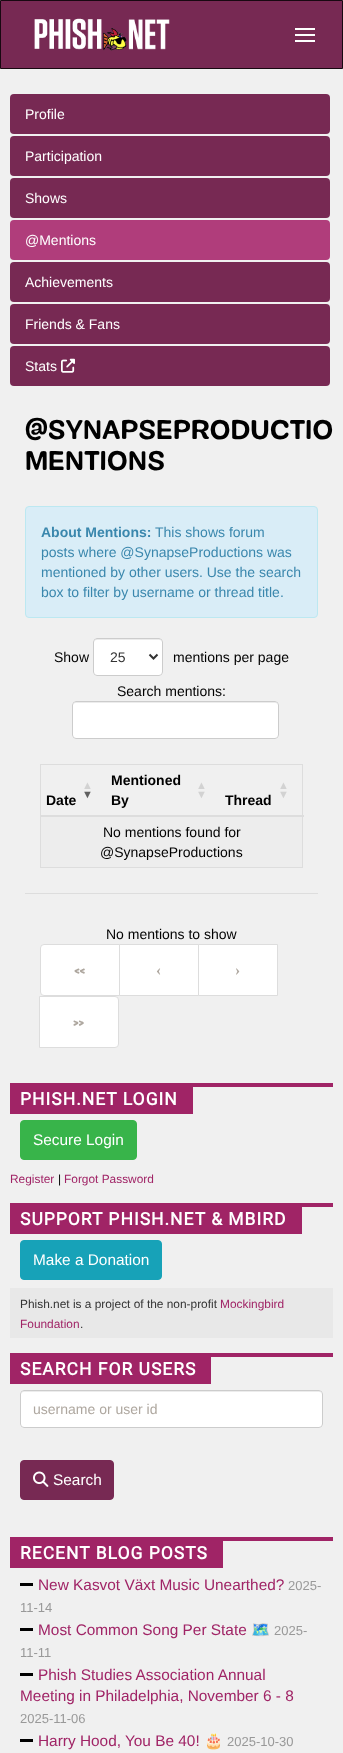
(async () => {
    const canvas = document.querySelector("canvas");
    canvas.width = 343;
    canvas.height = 1753;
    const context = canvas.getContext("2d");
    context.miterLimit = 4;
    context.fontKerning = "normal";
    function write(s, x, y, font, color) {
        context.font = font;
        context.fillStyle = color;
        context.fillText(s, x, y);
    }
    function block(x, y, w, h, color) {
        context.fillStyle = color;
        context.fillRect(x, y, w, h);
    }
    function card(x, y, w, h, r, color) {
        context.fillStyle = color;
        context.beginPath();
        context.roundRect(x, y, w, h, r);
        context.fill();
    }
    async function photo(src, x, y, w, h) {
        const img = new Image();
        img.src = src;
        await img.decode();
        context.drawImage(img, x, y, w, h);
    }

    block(0, 0, 343, 1753, "rgb(240, 240, 240)");
    context.fillStyle = "rgb(119, 41, 83)";
    context.beginPath();
    context.rect(0.5, 0.5, 342, 68);
    context.fill();
    context.strokeStyle = "rgb(24, 8, 17)";
    context.stroke();
    await photo("media/1.png", 34, 18, 136, 33);
    block(295, 28, 20, 2, "rgb(255, 255, 255)");
    block(295, 34, 20, 2, "rgb(255, 255, 255)");
    block(295, 40, 20, 2, "rgb(255, 255, 255)");
    card(10, 94, 320, 40, 4, "rgb(119, 41, 83)");
    write("Profile", 25, 119, "14px Liberation Sans", "rgb(255, 255, 255)");
    card(10, 136, 320, 40, 4, "rgb(119, 41, 83)");
    write("Participation", 25, 161, "14px Liberation Sans", "rgb(255, 255, 255)");
    card(10, 178, 320, 40, 4, "rgb(119, 41, 83)");
    write("Shows", 25, 203, "14px Liberation Sans", "rgb(255, 255, 255)");
    card(10, 220, 320, 40, 4, "rgb(176, 61, 123)");
    write("@Mentions", 25, 245, "14px Liberation Sans", "rgb(255, 255, 255)");
    card(10, 262, 320, 40, 4, "rgb(119, 41, 83)");
    write("Achievements", 25, 287, "14px Liberation Sans", "rgb(255, 255, 255)");
    card(10, 304, 320, 40, 4, "rgb(119, 41, 83)");
    write("Friends & Fans", 25, 329, "14px Liberation Sans", "rgb(255, 255, 255)");
    card(10, 346, 320, 40, 4, "rgb(119, 41, 83)");
    write("Stats", 25, 371, "14px Liberation Sans", "rgb(255, 255, 255)");
    await photo("media/2.png", 61, 358, 14, 15);
    write("@SYNAPSEPRODUCTIO", 25, 439, "bold 28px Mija", "rgb(0, 0, 0)");
    write("MENTIONS", 25, 470, "bold 28px Mija", "rgb(0, 0, 0)");
    context.fillStyle = "rgb(217, 237, 247)";
    context.beginPath();
    context.roundRect(25.5, 506.5, 292, 111, 3.5);
    context.fill();
    context.strokeStyle = "rgb(188, 232, 241)";
    context.stroke();
    write("About Mentions:", 41, 537, "bold 14px Liberation Sans", "rgb(58, 135, 173)");
    write("This shows forum", 155, 537, "14px Liberation Sans", "rgb(58, 135, 173)");
    write("posts where @SynapseProductions was", 41, 557, "14px Liberation Sans", "rgb(58, 135, 173)");
    write("mentioned by other users. Use the search", 41, 577, "14px Liberation Sans", "rgb(58, 135, 173)");
    write("box to filter by username or thread title.", 41, 597, "14px Liberation Sans", "rgb(58, 135, 173)");
    write("Show", 54, 662, "14px Liberation Sans", "rgb(0, 0, 0)");
    card(93, 638, 70, 38, 4, "rgb(255, 255, 255)");
    context.fillStyle = "rgb(236, 236, 236)";
    context.beginPath();
    context.moveTo(97, 640);
    context.lineTo(159, 640);
    context.bezierCurveTo(161, 640, 162, 641, 162, 643);
    context.bezierCurveTo(162, 636, 153, 639, 149, 639);
    context.lineTo(107, 639);
    context.bezierCurveTo(103, 639, 94, 636, 94, 643);
    context.bezierCurveTo(94, 641, 95, 640, 97, 640);
    context.closePath();
    context.fill();
    context.beginPath();
    context.roundRect(93.5, 638.5, 69, 37, 3.5);
    context.strokeStyle = "rgb(204, 204, 204)";
    context.stroke();
    context.beginPath();
    context.moveTo(149.5, 654.5);
    context.lineTo(153.5, 658.5);
    context.lineTo(157.5, 654.5);
    context.strokeStyle = "rgb(51, 51, 51)";
    context.lineWidth = 2;
    context.stroke();
    write("25", 110, 662, "14px Liberation Sans", "rgb(51, 51, 51)");
    write("mentions per page", 173, 662, "14px Liberation Sans", "rgb(0, 0, 0)");
    write("Search mentions:", 117, 696, "14px Liberation Sans", "rgb(0, 0, 0)");
    card(72, 701, 207, 38, 4, "rgb(255, 255, 255)");
    context.fillStyle = "rgb(236, 236, 236)";
    context.beginPath();
    context.moveTo(76, 703);
    context.lineTo(275, 703);
    context.bezierCurveTo(277, 703, 278, 704, 278, 706);
    context.bezierCurveTo(278, 704, 277, 702, 275, 702);
    context.lineTo(76, 702);
    context.bezierCurveTo(74, 702, 73, 704, 73, 706);
    context.bezierCurveTo(73, 704, 74, 703, 76, 703);
    context.closePath();
    context.fill();
    context.beginPath();
    context.roundRect(72.5, 701.5, 206, 37, 3.5);
    context.strokeStyle = "rgb(204, 204, 204)";
    context.lineWidth = 1;
    context.stroke();
    block(40, 764, 263, 1, "rgb(221, 221, 221)");
    block(302, 764, 1, 104, "rgb(221, 221, 221)");
    block(40, 867, 263, 1, "rgb(221, 221, 221)");
    block(40, 764, 1, 104, "rgb(221, 221, 221)");
    write("▲", 82, 789, "bold 11px Liberation Sans", "rgb(210, 210, 210)");
    write("▼", 82, 798, "bold 11px Liberation Sans", "rgb(96, 96, 96)");
    write("Date", 46, 805, "bold 14px Liberation Sans", "rgb(0, 0, 0)");
    write("Mentioned", 111, 785, "bold 14px Liberation Sans", "rgb(0, 0, 0)");
    write("▲", 196, 789, "bold 11px Liberation Sans", "rgb(210, 210, 210)");
    write("▼", 196, 798, "bold 11px Liberation Sans", "rgb(210, 210, 210)");
    write("By", 111, 805, "bold 14px Liberation Sans", "rgb(0, 0, 0)");
    block(40, 815, 264, 2, "rgb(221, 221, 221)");
    write("Thread", 225, 805, "bold 14px Liberation Sans", "rgb(0, 0, 0)");
    write("▲", 278, 789, "bold 11px Liberation Sans", "rgb(210, 210, 210)");
    write("▼", 278, 798, "bold 11px Liberation Sans", "rgb(210, 210, 210)");
    block(41, 817, 261, 50, "rgb(237, 237, 237)");
    write("No mentions found for", 103, 837, "14px Liberation Sans", "rgb(0, 0, 0)");
    write("@SynapseProductions", 100, 857, "14px Liberation Sans", "rgb(0, 0, 0)");
    block(25, 893, 293, 1, "rgb(221, 221, 221)");
    write("No mentions to show", 106, 939, "14px Liberation Sans", "rgb(0, 0, 0)");
    context.fillStyle = "rgb(255, 255, 255)";
    context.beginPath();
    context.roundRect(40.5, 944.5, 79, 51, [3.5, 0, 0, 3.5]);
    context.fill();
    context.strokeStyle = "rgb(221, 221, 221)";
    context.stroke();
    write("«", 74, 975, "bold 15.4px Mija", "rgb(174, 167, 159)");
    context.fillStyle = "rgb(255, 255, 255)";
    context.beginPath();
    context.rect(119.5, 944.5, 79, 51);
    context.fill();
    context.stroke();
    write("‹", 156, 975, "bold 15.4px Liberation Serif", "rgb(174, 167, 159)");
    context.fillStyle = "rgb(255, 255, 255)";
    context.beginPath();
    context.rect(198.5, 944.5, 79, 51);
    context.fill();
    context.stroke();
    write("›", 235, 975, "bold 15.4px Liberation Serif", "rgb(174, 167, 159)");
    context.fillStyle = "rgb(255, 255, 255)";
    context.beginPath();
    context.roundRect(39.5, 996.5, 79, 51, [0, 3.5, 3.5, 0]);
    context.fill();
    context.stroke();
    write("»", 73, 1027, "bold 15.4px Mija", "rgb(174, 167, 159)");
    block(10, 1083, 323, 4, "rgb(160, 36, 102)");
    block(10, 1087, 183, 27, "rgb(160, 36, 102)");
    context.letterSpacing = "1px";
    write("PHISH.NET LOGIN", 20, 1105, "bold 17.5px Roboto", "rgb(255, 255, 255)");
    context.fillStyle = "rgb(56, 180, 74)";
    context.beginPath();
    context.roundRect(20.5, 1120.5, 116, 39, 3.5);
    context.fill();
    context.strokeStyle = "rgb(56, 180, 74)";
    context.stroke();
    context.letterSpacing = "0px";
    write("Secure Login", 33, 1145, "15.4px Liberation Sans", "rgb(255, 255, 255)");
    write("Register", 10, 1183, "11.9px Liberation Sans", "rgb(160, 36, 102)");
    write("|", 58, 1183, "11.9px Liberation Sans", "rgb(0, 0, 0)");
    write("Forgot Password", 64, 1183, "11.9px Liberation Sans", "rgb(160, 36, 102)");
    block(10, 1203, 323, 4, "rgb(160, 36, 102)");
    block(10, 1207, 292, 27, "rgb(160, 36, 102)");
    context.letterSpacing = "1px";
    write("SUPPORT PHISH.NET & MBIRD", 20, 1225, "bold 17.5px Roboto", "rgb(255, 255, 255)");
    context.fillStyle = "rgb(23, 162, 184)";
    context.beginPath();
    context.roundRect(20.5, 1240.5, 141, 39, 3.5);
    context.fill();
    context.strokeStyle = "rgb(23, 162, 184)";
    context.stroke();
    context.letterSpacing = "0px";
    write("Make a Donation", 33, 1265, "15.4px Liberation Sans", "rgb(255, 255, 255)");
    block(10, 1288, 323, 50, "rgb(232, 232, 232)");
    write("Phish.net is a project of the non-profit", 20, 1308, "11.9px Liberation Sans", "rgb(51, 51, 51)");
    write("Mockingbird", 220, 1308, "11.9px Liberation Sans", "rgb(160, 36, 102)");
    write("Foundation", 20, 1328, "11.9px Liberation Sans", "rgb(160, 36, 102)");
    write(".", 80, 1328, "11.9px Liberation Sans", "rgb(51, 51, 51)");
    block(10, 1353, 323, 4, "rgb(160, 36, 102)");
    block(10, 1357, 201, 27, "rgb(160, 36, 102)");
    context.letterSpacing = "1px";
    write("SEARCH FOR USERS", 20, 1375, "bold 17.5px Roboto", "rgb(255, 255, 255)");
    card(20, 1390, 303, 38, 4, "rgb(255, 255, 255)");
    context.fillStyle = "rgb(236, 236, 236)";
    context.beginPath();
    context.moveTo(24, 1392);
    context.lineTo(319, 1392);
    context.bezierCurveTo(321, 1392, 322, 1393, 322, 1395);
    context.lineTo(321, 1392);
    context.lineTo(320, 1391);
    context.lineTo(24, 1391);
    context.bezierCurveTo(22, 1391, 21, 1393, 21, 1395);
    context.bezierCurveTo(21, 1393, 22, 1392, 24, 1392);
    context.closePath();
    context.fill();
    context.beginPath();
    context.roundRect(20.5, 1390.5, 302, 37, 3.5);
    context.strokeStyle = "rgb(204, 204, 204)";
    context.stroke();
    context.letterSpacing = "0px";
    write("username or user id", 33, 1414, "14px Liberation Sans", "rgb(174, 167, 159)");
    context.fillStyle = "rgb(119, 41, 83)";
    context.beginPath();
    context.roundRect(20.5, 1460.5, 93, 39, 3.5);
    context.fill();
    context.strokeStyle = "rgb(119, 41, 83)";
    context.stroke();
    await photo("media/3.png", 33, 1471, 16, 16);
    write("Search", 53, 1485, "15.4px Liberation Sans", "rgb(255, 255, 255)");
    block(10, 1537, 323, 4, "rgb(160, 36, 102)");
    block(10, 1541, 213, 27, "rgb(160, 36, 102)");
    context.letterSpacing = "1px";
    write("RECENT BLOG POSTS", 20, 1559, "bold 17.5px Roboto", "rgb(255, 255, 255)");
    block(20, 1583, 13, 3, "rgb(0, 0, 0)");
    context.letterSpacing = "0px";
    write("New Kasvot Växt Music Unearthed?", 38, 1590, "15.4px Liberation Sans", "rgb(160, 36, 102)");
    write("2025-", 288, 1590, "13px Liberation Sans", "rgb(153, 153, 153)");
    write("11-14", 20, 1612, "13px Liberation Sans", "rgb(153, 153, 153)");
    block(20, 1628, 13, 3, "rgb(0, 0, 0)");
    write("Most Common Song Per State", 38, 1635, "15.4px Liberation Sans", "rgb(160, 36, 102)");
    write("🗺️", 251, 1635, "15.4px Noto Color Emoji", "rgb(160, 36, 102)");
    write("2025-", 274, 1635, "13px Liberation Sans", "rgb(153, 153, 153)");
    write("11-11", 20, 1657, "13px Liberation Sans", "rgb(153, 153, 153)");
    block(20, 1673, 13, 3, "rgb(0, 0, 0)");
    write("Phish Studies Association Annual", 38, 1680, "15.4px Liberation Sans", "rgb(160, 36, 102)");
    write("Meeting in Philadelphia, November 6 - 8", 20, 1701, "15.4px Liberation Sans", "rgb(160, 36, 102)");
    write("2025-11-06", 20, 1723, "13px Liberation Sans", "rgb(153, 153, 153)");
    block(20, 1739, 13, 3, "rgb(0, 0, 0)");
    write("Harry Hood, You Be 40!", 38, 1746, "15.4px Liberation Sans", "rgb(160, 36, 102)");
    write("🎂", 204, 1746, "15.4px Noto Color Emoji", "rgb(160, 36, 102)");
    write("2025-10-30", 227, 1746, "13px Liberation Sans", "rgb(153, 153, 153)");
})();
